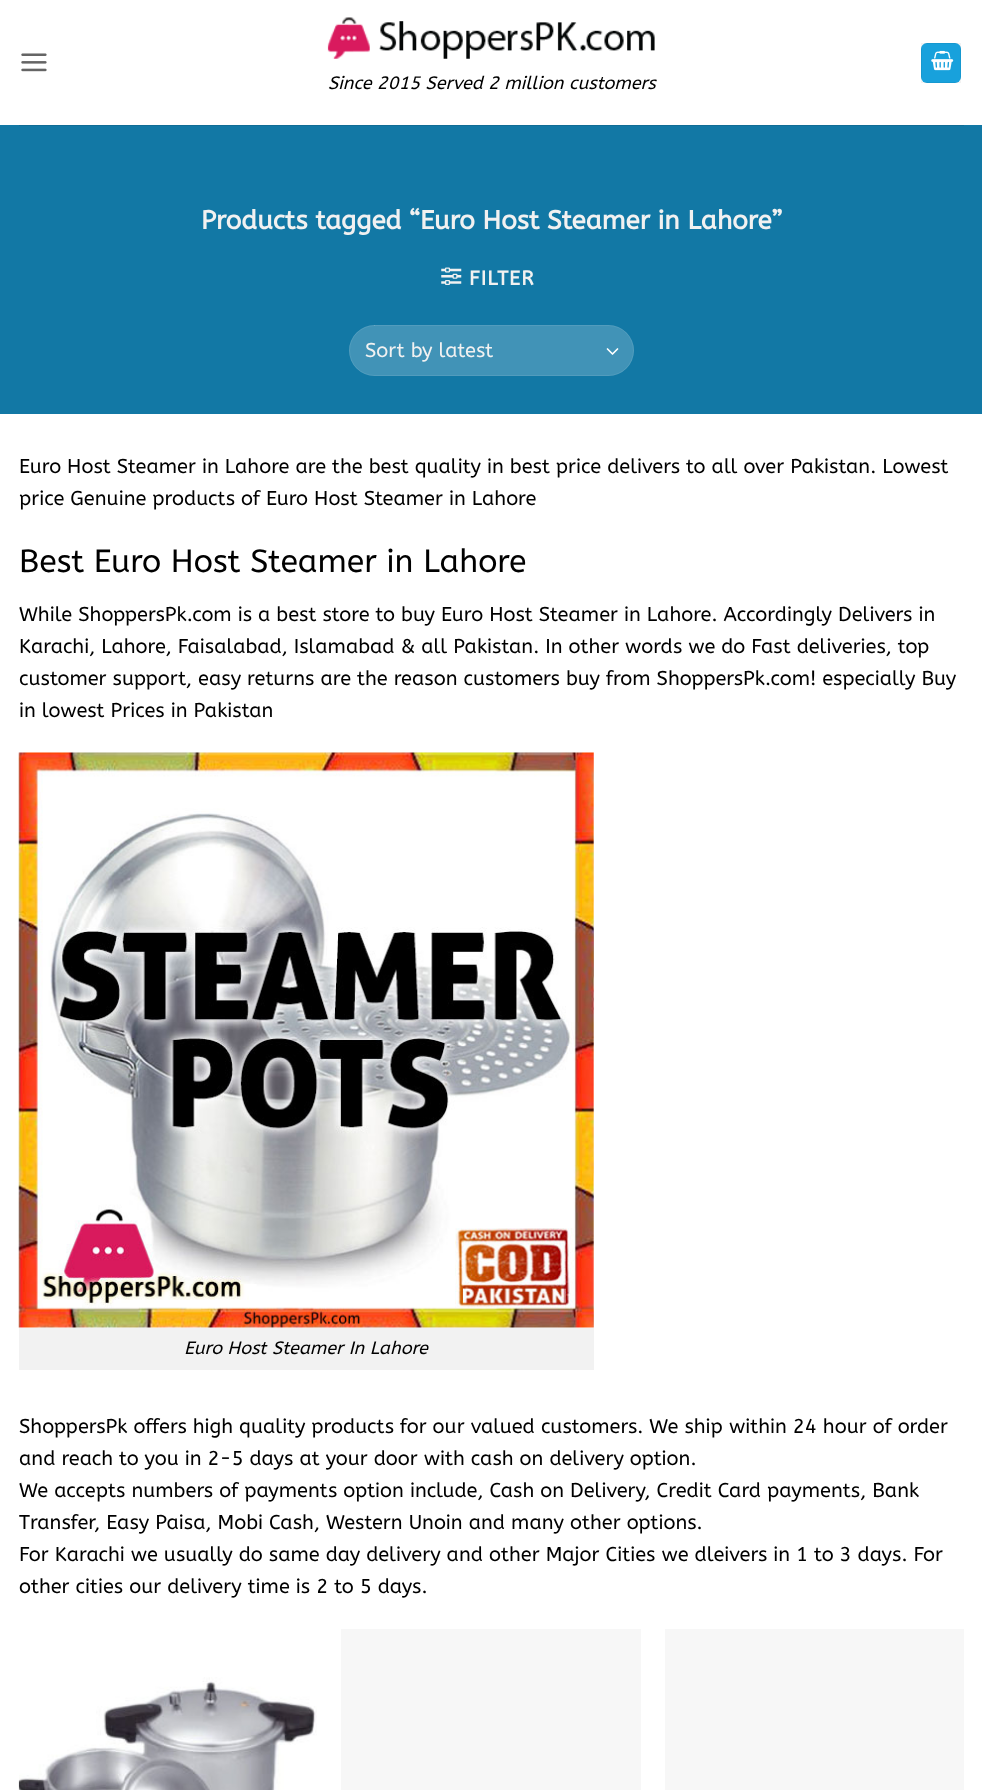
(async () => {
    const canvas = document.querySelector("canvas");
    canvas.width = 982;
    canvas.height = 1790;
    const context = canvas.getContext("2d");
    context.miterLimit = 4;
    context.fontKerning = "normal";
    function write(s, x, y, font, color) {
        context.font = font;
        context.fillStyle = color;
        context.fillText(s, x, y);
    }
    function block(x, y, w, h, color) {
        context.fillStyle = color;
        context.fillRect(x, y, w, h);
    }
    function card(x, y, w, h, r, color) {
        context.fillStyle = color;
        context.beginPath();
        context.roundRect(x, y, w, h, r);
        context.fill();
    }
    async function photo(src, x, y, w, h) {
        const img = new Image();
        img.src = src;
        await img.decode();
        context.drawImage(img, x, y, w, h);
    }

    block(0, 0, 982, 1790, "rgb(255, 255, 255)");
    await photo("media/1.png", 21, 53, 26, 19);
    card(921, 43, 40, 40, 6, "rgb(24, 161, 220)");
    context.strokeStyle = "rgba(0, 0, 0, 0.05)";
    context.strokeRect(921.5, 43.5, 39, 39);
    await photo("media/2.png", 931, 50, 23, 21);
    await photo("media/3.png", 327, 17, 328, 42);
    write("Since 2015 Served 2 million customers", 328, 89, "italic 18px ABeeZee", "rgb(0, 0, 0)");
    block(0, 125, 982, 289, "rgb(18, 120, 165)");
    block(19, 125, 945, 1, "rgb(16, 108, 149)");
    write("Products tagged “Euro Host Steamer in Lahore”", 201, 229, "bold 26px ABeeZee", "rgb(241, 241, 241)");
    await photo("media/4.png", 441, 267, 21, 18);
    context.letterSpacing = "1px";
    write("FILTER", 469, 285, "bold 20px ABeeZee", "rgb(241, 241, 241)");
    card(349, 325, 285, 51, 25.5, "rgb(65, 147, 183)");
    context.beginPath();
    context.moveTo(607.5, 349);
    context.lineTo(612.5, 354);
    context.lineTo(617.5, 349);
    context.strokeStyle = "rgb(255, 255, 255)";
    context.lineWidth = 1.7;
    context.lineCap = "round";
    context.lineJoin = "round";
    context.stroke();
    context.beginPath();
    context.roundRect(349.5, 325.5, 284, 50, 25);
    context.strokeStyle = "rgba(255, 255, 255, 0.09)";
    context.lineWidth = 1;
    context.lineJoin = "miter";
    context.stroke();
    context.letterSpacing = "0px";
    write("Sort by latest", 365, 357, "20px ABeeZee", "rgb(241, 241, 241)");
    write("Euro Host Steamer in Lahore are the best quality in best price delivers to all over Pakistan. Lowest", 19, 473, "20px ABeeZee", "rgb(0, 0, 0)");
    write("price Genuine products of Euro Host Steamer in Lahore", 19, 505, "20px ABeeZee", "rgb(0, 0, 0)");
    write("Best Euro Host Steamer in Lahore", 19, 572, "32px ABeeZee", "rgb(0, 0, 0)");
    write("While ShoppersPk.com is a best store to buy Euro Host Steamer in Lahore. Accordingly Delivers in", 19, 621, "20px ABeeZee", "rgb(0, 0, 0)");
    write("Karachi, Lahore, Faisalabad, Islamabad & all Pakistan. In other words we do Fast deliveries, top", 19, 653, "20px ABeeZee", "rgb(0, 0, 0)");
    write("customer support, easy returns are the reason customers buy from ShoppersPk.com! especially Buy", 19, 685, "20px ABeeZee", "rgb(0, 0, 0)");
    write("in lowest Prices in Pakistan", 19, 717, "20px ABeeZee", "rgb(0, 0, 0)");
    await photo("media/5.png", 18, 752, 576, 576);
    block(19, 1328, 575, 42, "rgb(242, 242, 242)");
    write("Euro Host Steamer In Lahore", 184, 1354, "italic 18px ABeeZee", "rgb(0, 0, 0)");
    write("ShoppersPk offers high quality products for our valued customers. We ship within 24 hour of order", 19, 1433, "20px ABeeZee", "rgb(0, 0, 0)");
    write("and reach to you in 2-5 days at your door with cash on delivery option.", 19, 1465, "20px ABeeZee", "rgb(0, 0, 0)");
    write("We accepts numbers of payments option include, Cash on Delivery, Credit Card payments, Bank", 19, 1497, "20px ABeeZee", "rgb(0, 0, 0)");
    write("Transfer, Easy Paisa, Mobi Cash, Western Unoin and many other options.", 19, 1529, "20px ABeeZee", "rgb(0, 0, 0)");
    write("For Karachi we usually do same day delivery and other Major Cities we dleivers in 1 to 3 days. For", 19, 1561, "20px ABeeZee", "rgb(0, 0, 0)");
    write("other cities our delivery time is 2 to 5 days.", 19, 1593, "20px ABeeZee", "rgb(0, 0, 0)");
    await photo("media/6.png", 18, 1677, 299, 113);
    block(341, 1629, 300, 161, "rgb(247, 247, 247)");
    block(665, 1629, 299, 161, "rgb(247, 247, 247)");
})();
